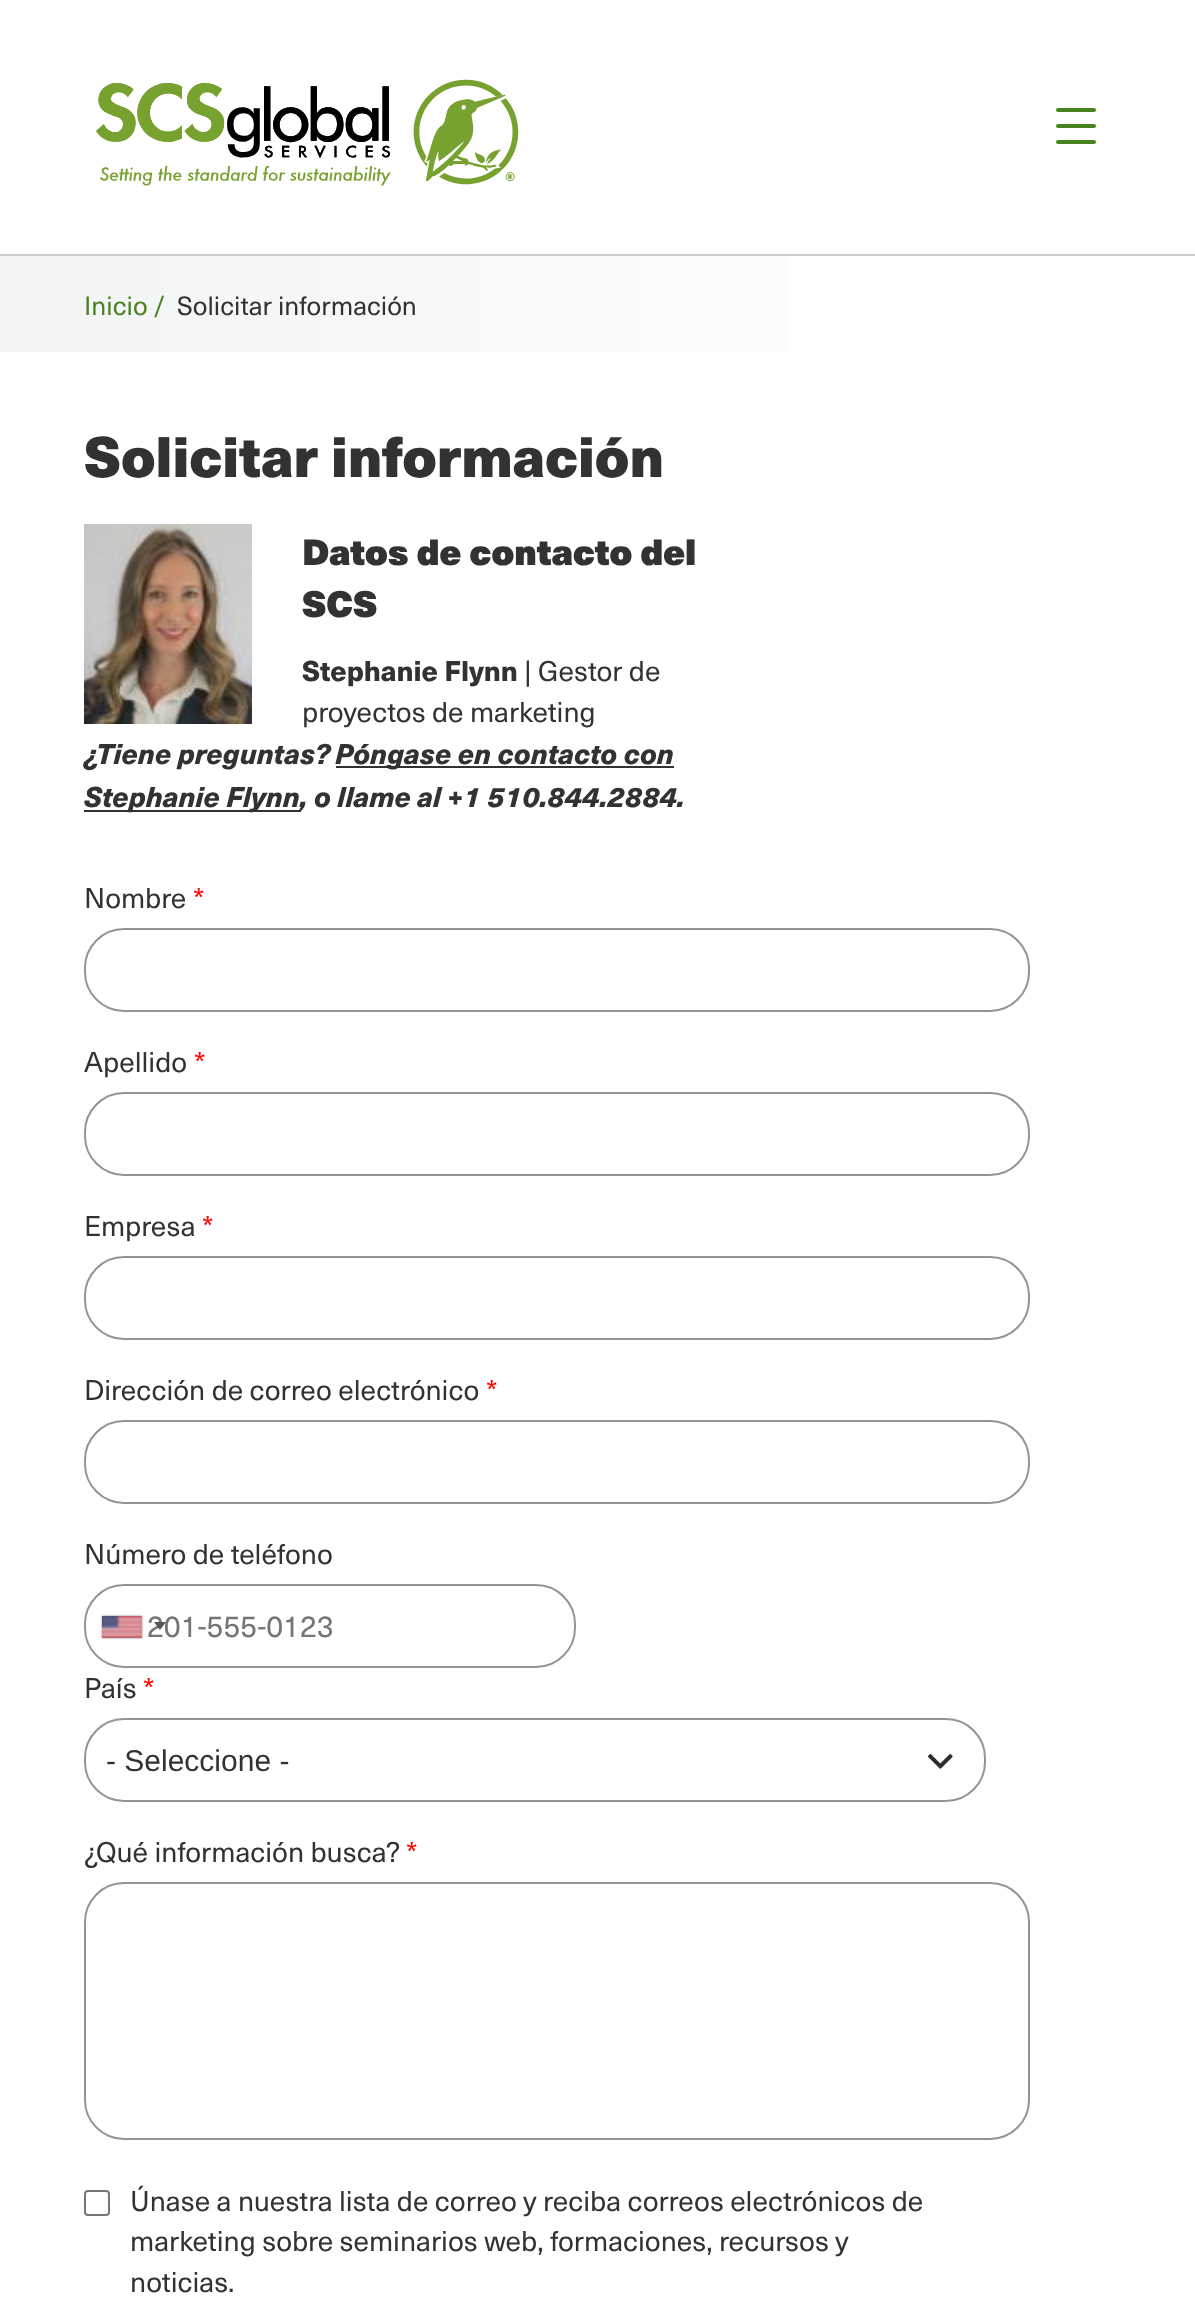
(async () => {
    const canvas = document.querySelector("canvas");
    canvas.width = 1195;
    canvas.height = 2307;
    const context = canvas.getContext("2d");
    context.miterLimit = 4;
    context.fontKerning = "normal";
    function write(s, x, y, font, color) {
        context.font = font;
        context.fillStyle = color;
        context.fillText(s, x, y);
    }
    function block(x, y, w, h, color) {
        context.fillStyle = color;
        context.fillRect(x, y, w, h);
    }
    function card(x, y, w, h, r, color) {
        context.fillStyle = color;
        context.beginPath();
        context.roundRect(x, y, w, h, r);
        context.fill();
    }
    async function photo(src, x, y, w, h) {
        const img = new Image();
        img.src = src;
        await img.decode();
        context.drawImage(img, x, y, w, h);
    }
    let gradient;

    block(0, 0, 1195, 2307, "rgb(255, 255, 255)");
    block(0, 254, 1195, 2, "rgb(204, 204, 204)");
    await photo("media/1.png", 96, 79, 423, 107);
    card(1056, 108, 40, 4, 2, "rgb(74, 131, 30)");
    card(1056, 124, 40, 4, 2, "rgb(74, 131, 30)");
    card(1056, 140, 40, 4, 2, "rgb(74, 131, 30)");
    gradient = context.createLinearGradient(0, 304, 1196, 304);
    gradient.addColorStop(0, "rgb(241, 243, 245)");
    gradient.addColorStop(0.8, "rgb(255, 255, 255)");
    context.fillStyle = gradient;
    context.fillRect(0, 256, 786, 96);
    write("Inicio /", 84, 315, "26px 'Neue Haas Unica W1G'", "rgb(74, 131, 30)");
    write("Solicitar información", 177, 315, "26px 'Neue Haas Unica W1G'", "rgb(50, 50, 50)");
    write("Solicitar información", 84, 477, "900 56px 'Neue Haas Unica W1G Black'", "rgb(50, 50, 50)");
    await photo("media/2.png", 84, 524, 168, 200);
    write("Datos de contacto del", 302, 565, "900 36px 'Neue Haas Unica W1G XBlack'", "rgb(50, 50, 50)");
    write("SCS", 302, 617, "900 36px 'Neue Haas Unica W1G XBlack'", "rgb(50, 50, 50)");
    write("Stephanie Flynn", 302, 681, "900 28px 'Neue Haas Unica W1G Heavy'", "rgb(50, 50, 50)");
    write("| Gestor de", 524, 681, "28px 'Neue Haas Unica W1G'", "rgb(50, 50, 50)");
    write("proyectos de marketing", 302, 722, "28px 'Neue Haas Unica W1G'", "rgb(50, 50, 50)");
    write("¿Tiene preguntas?", 84, 764, "italic 900 28px 'Neue Haas Unica W1G Heavy'", "rgb(50, 50, 50)");
    block(336, 766, 338, 2, "rgb(50, 50, 50)");
    write("Póngase en contacto con", 335, 764, "italic 900 28px 'Neue Haas Unica W1G Heavy'", "rgb(50, 50, 50)");
    block(84, 810, 216, 2, "rgb(50, 50, 50)");
    write("Stephanie Flynn, o llame al +1 510.844.2884.", 84, 807, "italic 900 28px 'Neue Haas Unica W1G Heavy'", "rgb(50, 50, 50)");
    write("Nombre", 84, 908, "28px 'Neue Haas Unica W1G'", "rgb(50, 50, 50)");
    write("*", 193, 908, "28px 'Neue Haas Unica W1G'", "rgb(255, 0, 0)");
    context.beginPath();
    context.roundRect(85, 929, 944, 82, 39);
    context.strokeStyle = "rgb(148, 148, 148)";
    context.lineWidth = 2;
    context.stroke();
    write("Apellido", 84, 1072, "28px 'Neue Haas Unica W1G'", "rgb(50, 50, 50)");
    write("*", 194, 1072, "28px 'Neue Haas Unica W1G'", "rgb(255, 0, 0)");
    context.beginPath();
    context.roundRect(85, 1093, 944, 82, 39);
    context.stroke();
    write("Empresa", 84, 1236, "28px 'Neue Haas Unica W1G'", "rgb(50, 50, 50)");
    write("*", 202, 1236, "28px 'Neue Haas Unica W1G'", "rgb(255, 0, 0)");
    context.beginPath();
    context.roundRect(85, 1257, 944, 82, 39);
    context.stroke();
    write("Dirección de correo electrónico", 84, 1400, "28px 'Neue Haas Unica W1G'", "rgb(50, 50, 50)");
    write("*", 486, 1400, "28px 'Neue Haas Unica W1G'", "rgb(255, 0, 0)");
    context.beginPath();
    context.roundRect(85, 1421, 944, 82, 39);
    context.stroke();
    write("Número de teléfono", 84, 1564, "28px 'Neue Haas Unica W1G'", "rgb(50, 50, 50)");
    context.beginPath();
    context.roundRect(85, 1585, 490, 82, 39);
    context.stroke();
    context.fillStyle = "rgb(136, 136, 136)";
    context.filter = "blur(1px)";
    context.beginPath();
    context.rect(102, 1616, 40, 22);
    context.fill();
    context.filter = "none";
    await photo("media/3.png", 102, 1616, 40, 22);
    write("201-555-0123", 147, 1637, "30px 'Neue Haas Unica W1G'", "rgb(117, 117, 117)");
    context.fillStyle = "rgb(85, 85, 85)";
    context.beginPath();
    context.moveTo(154, 1622);
    context.lineTo(166, 1622);
    context.lineTo(160, 1630);
    context.closePath();
    context.fill();
    write("País", 84, 1698, "28px 'Neue Haas Unica W1G'", "rgb(50, 50, 50)");
    write("*", 143, 1698, "28px 'Neue Haas Unica W1G'", "rgb(255, 0, 0)");
    await photo("media/4.png", 928, 1754, 25, 15);
    context.beginPath();
    context.roundRect(85, 1719, 900, 82, 39);
    context.stroke();
    write("- Seleccione -", 106, 1771, "30px Liberation Sans", "rgb(50, 50, 50)");
    write("¿Qué información busca?", 84, 1862, "28px 'Neue Haas Unica W1G'", "rgb(50, 50, 50)");
    write("*", 406, 1862, "28px 'Neue Haas Unica W1G'", "rgb(255, 0, 0)");
    context.beginPath();
    context.roundRect(85, 1883, 944, 256, 39);
    context.stroke();
    context.beginPath();
    context.roundRect(85, 2191, 24, 24, 3);
    context.strokeStyle = "rgb(118, 118, 118)";
    context.stroke();
    write("Únase a nuestra lista de correo y reciba correos electrónicos de", 130, 2211, "28px 'Neue Haas Unica W1G'", "rgb(50, 50, 50)");
    write("marketing sobre seminarios web, formaciones, recursos y", 130, 2251, "28px 'Neue Haas Unica W1G'", "rgb(50, 50, 50)");
    write("noticias.", 130, 2292, "28px 'Neue Haas Unica W1G'", "rgb(50, 50, 50)");
})();
